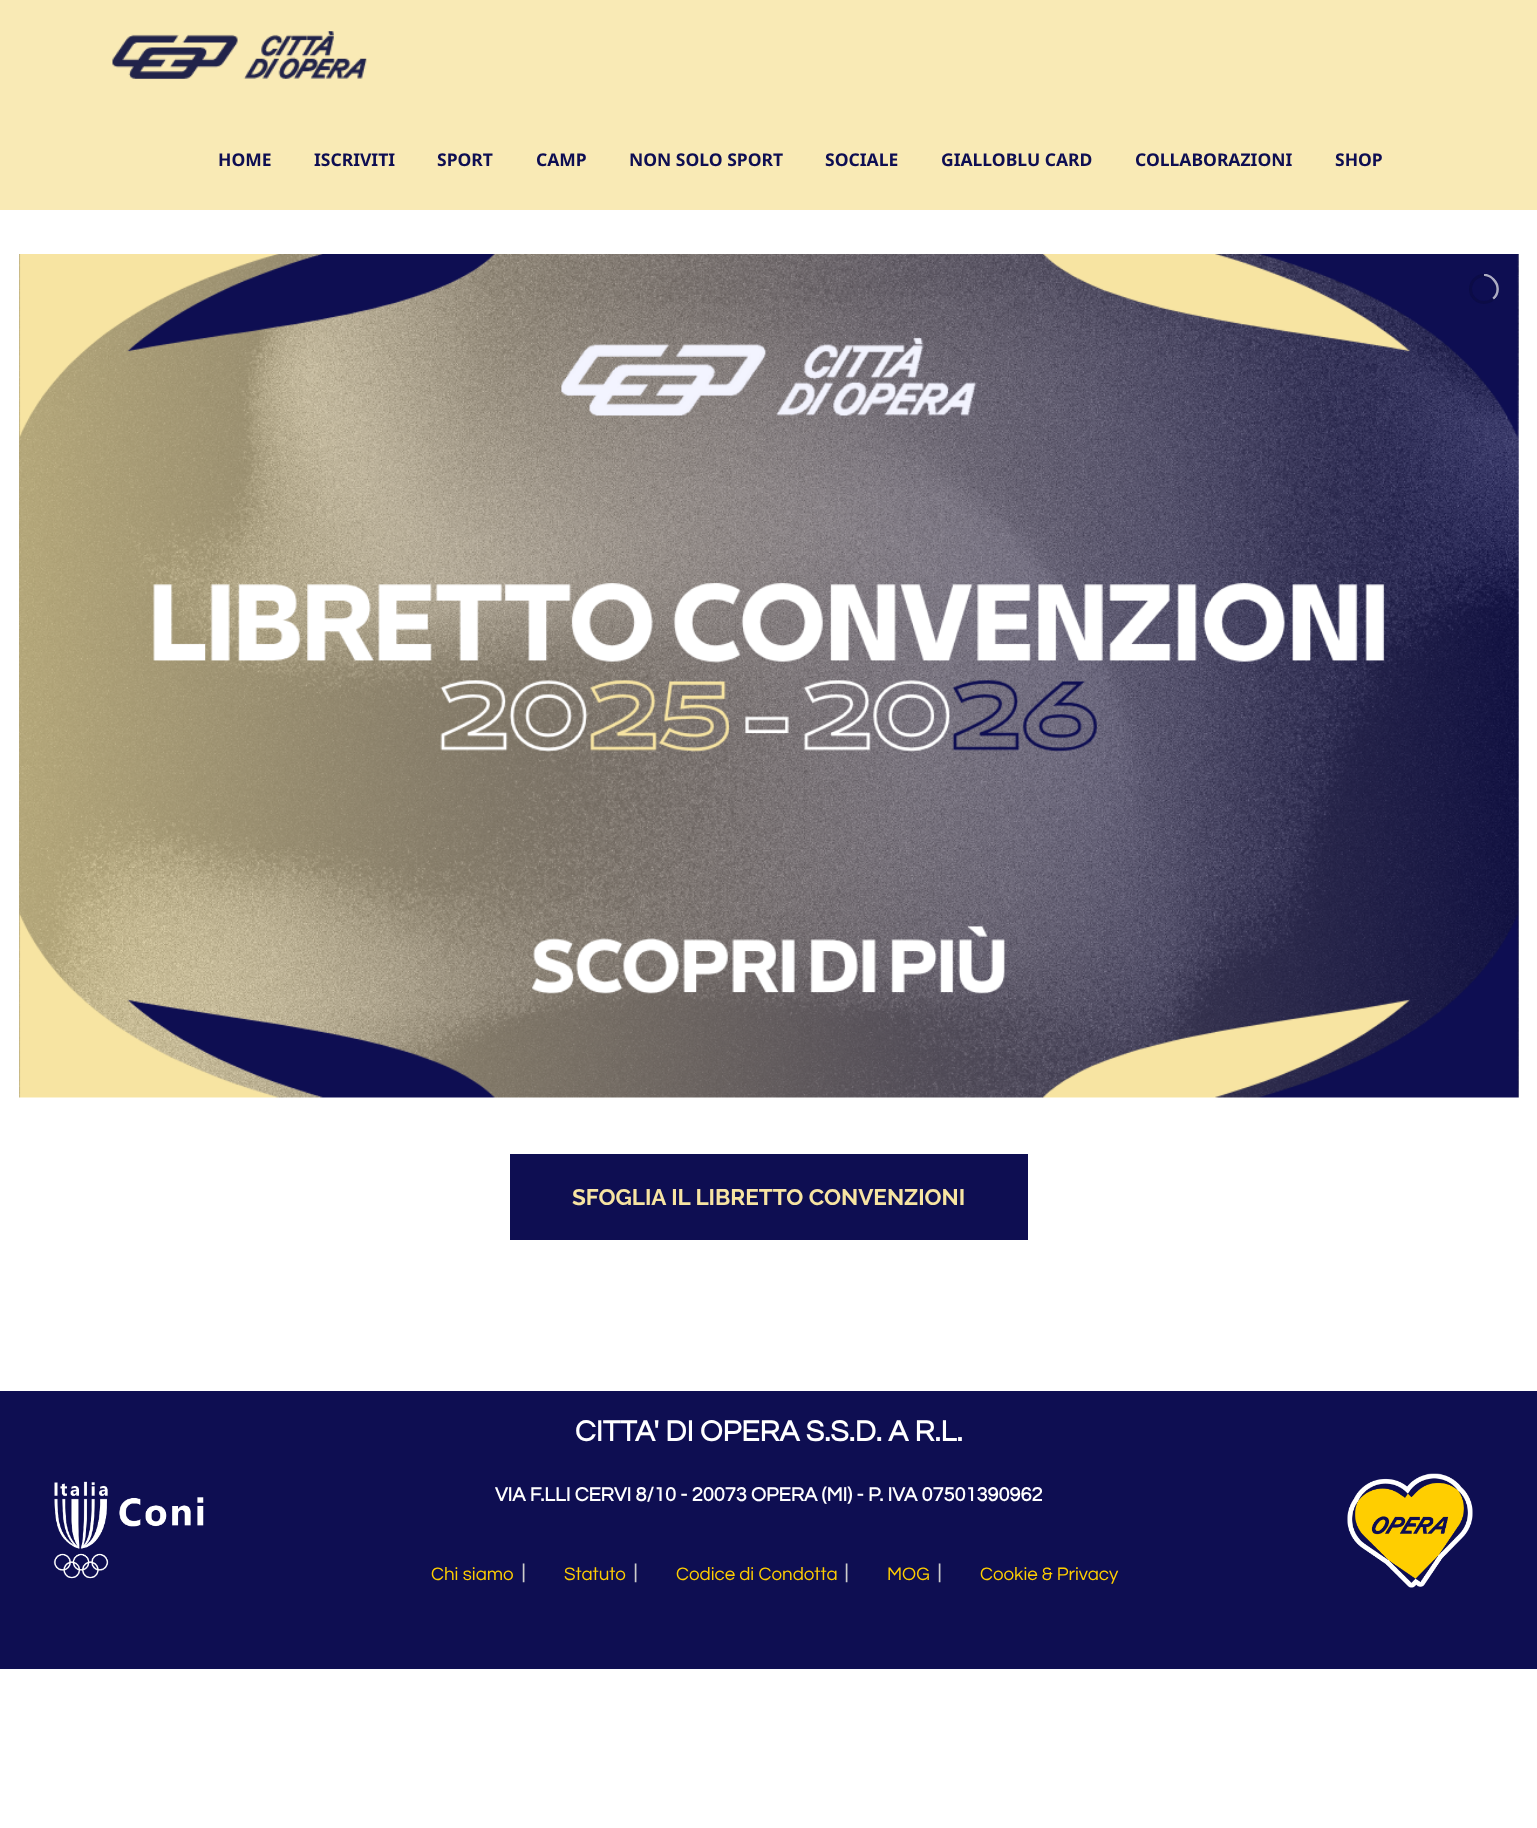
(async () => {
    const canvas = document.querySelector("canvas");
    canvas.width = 1537;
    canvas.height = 1828;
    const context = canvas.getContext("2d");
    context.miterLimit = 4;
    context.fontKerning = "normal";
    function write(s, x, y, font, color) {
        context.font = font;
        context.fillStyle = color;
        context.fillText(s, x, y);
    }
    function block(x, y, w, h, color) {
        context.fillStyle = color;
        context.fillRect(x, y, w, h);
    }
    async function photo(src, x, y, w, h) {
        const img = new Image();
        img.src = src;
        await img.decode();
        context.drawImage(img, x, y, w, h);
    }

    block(0, 0, 1537, 1828, "rgb(255, 255, 255)");
    block(0, 0, 1537, 210, "rgb(249, 234, 181)");
    await photo("media/1.png", 112, 31, 255, 48);
    write("HOME", 218, 166, "bold 17.5px Noto Sans", "rgb(14, 14, 82)");
    write("ISCRIVITI", 314, 166, "bold 17.5px Noto Sans", "rgb(14, 14, 82)");
    write("SPORT", 437, 166, "bold 17.5px Noto Sans", "rgb(14, 14, 82)");
    write("CAMP", 536, 166, "bold 17.5px Noto Sans", "rgb(14, 14, 82)");
    write("NON SOLO SPORT", 629, 166, "bold 17.5px Noto Sans", "rgb(14, 14, 82)");
    write("SOCIALE", 825, 166, "bold 17.5px Noto Sans", "rgb(14, 14, 82)");
    write("GIALLOBLU CARD", 941, 166, "bold 17.5px Noto Sans", "rgb(14, 14, 82)");
    write("COLLABORAZIONI", 1135, 166, "bold 17.5px Noto Sans", "rgb(14, 14, 82)");
    write("SHOP", 1335, 166, "bold 17.5px Noto Sans", "rgb(14, 14, 82)");
    await photo("media/2.png", 19, 254, 1500, 844);
    context.beginPath();
    context.arc(1484, 289, 13.5, 0, Math.PI * 2);
    context.strokeStyle = "rgb(12, 12, 71)";
    context.lineWidth = 3;
    context.stroke();
    context.save();
    context.beginPath();
    context.rect(1484, 274, 15, 30);
    context.clip();
    context.beginPath();
    context.moveTo(1505, 289.5);
    context.lineTo(1494, 299.5);
    context.lineTo(1473.5, 278);
    context.lineTo(1484.5, 267.5);
    context.closePath();
    context.clip();
    context.beginPath();
    context.moveTo(1493, 299);
    context.bezierCurveTo(1480, 311, 1461, 291, 1474.5, 278.5);
    context.bezierCurveTo(1487.5, 266.5, 1506.5, 286.5, 1493, 299);
    context.closePath();
    context.strokeStyle = "rgb(171, 171, 194)";
    context.lineWidth = 2.5;
    context.stroke();
    context.restore();
    block(510, 1154, 518, 86, "rgb(14, 14, 82)");
    write("SFOGLIA IL LIBRETTO CONVENZIONI", 572, 1205, "bold 22.5px Raleway", "rgb(247, 228, 162)");
    block(0, 1391, 1537, 278, "rgb(14, 14, 82)");
    await photo("media/3.png", 53, 1481, 151, 98);
    write("CITTA' DI OPERA S.S.D. A R.L.", 575, 1441, "bold 30px Questrial", "rgb(255, 255, 255)");
    write("VIA F.LLI CERVI 8/10 - 20073 OPERA (MI) - P. IVA 07501390962", 495, 1501, "bold 20px Questrial", "rgb(255, 255, 255)");
    write("Chi siamo", 431, 1580, "18.75px Questrial", "rgb(255, 206, 0)");
    write("|", 521, 1578, "20px Liberation Sans", "rgb(204, 204, 204)");
    write("Statuto", 564, 1580, "18.75px Questrial", "rgb(255, 206, 0)");
    write("|", 633, 1578, "20px Liberation Sans", "rgb(204, 204, 204)");
    write("Codice di Condotta", 676, 1580, "18.75px Questrial", "rgb(255, 206, 0)");
    write("|", 844, 1578, "20px Liberation Sans", "rgb(204, 204, 204)");
    write("MOG", 887, 1580, "18.75px Questrial", "rgb(255, 206, 0)");
    write("|", 937, 1578, "20px Liberation Sans", "rgb(204, 204, 204)");
    write("Cookie & Privacy", 980, 1580, "18.75px Questrial", "rgb(255, 206, 0)");
    await photo("media/4.png", 1347, 1473, 126, 115);
})();
